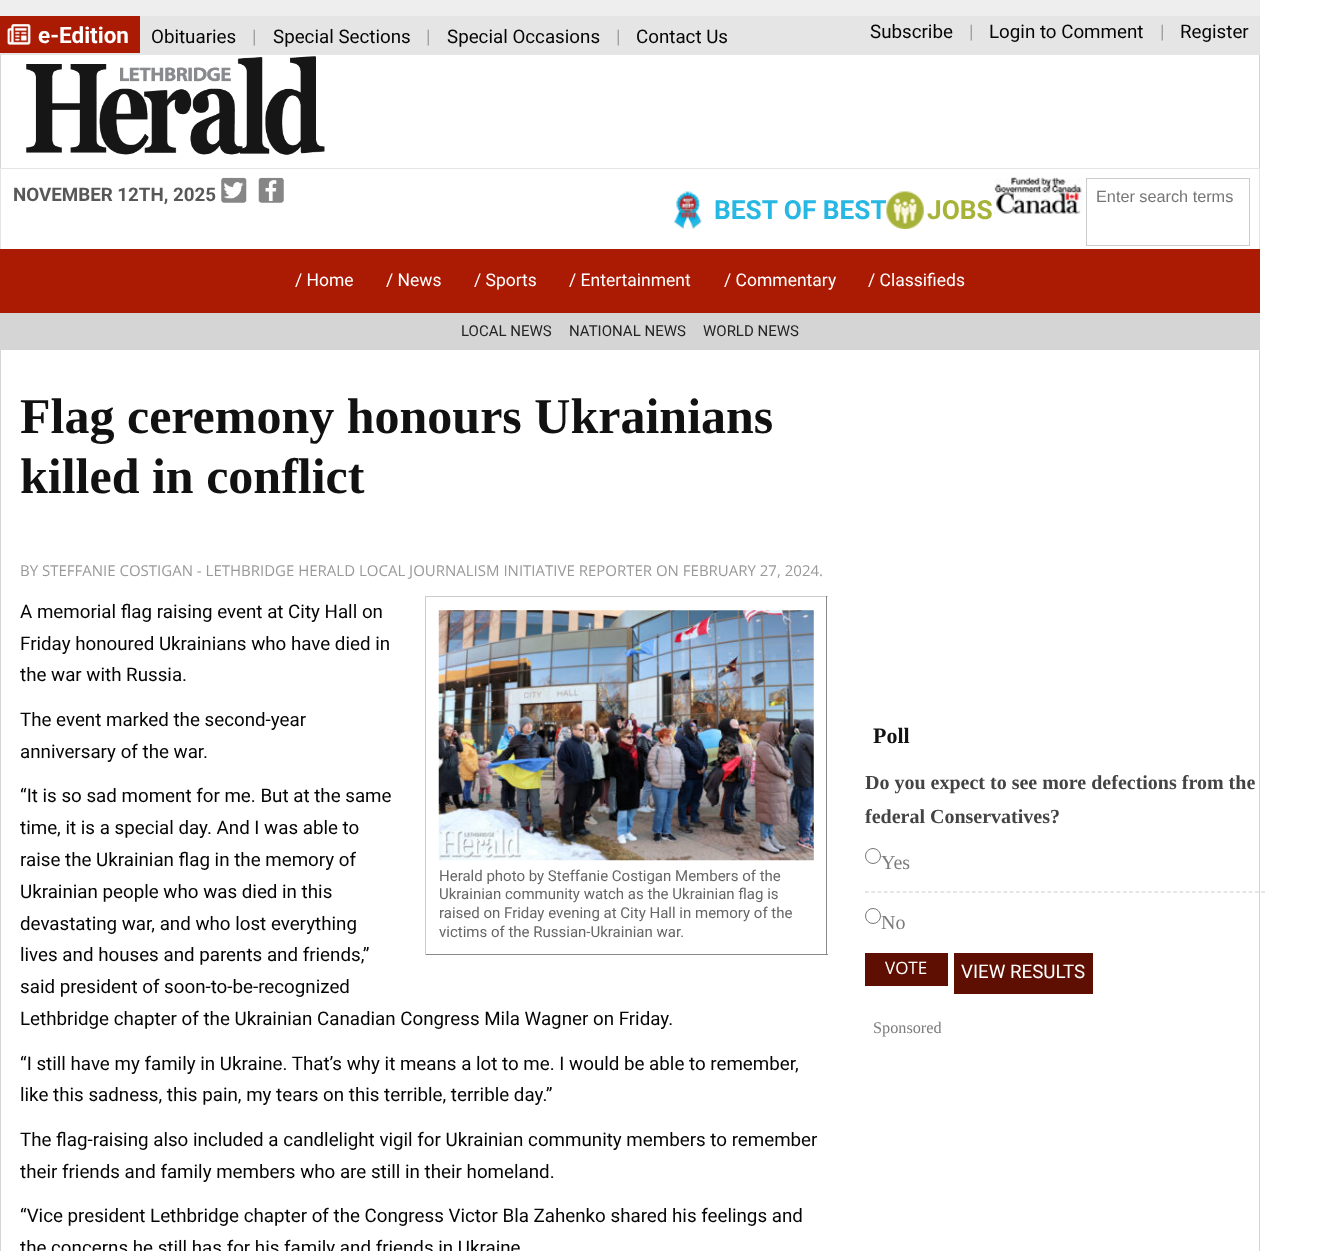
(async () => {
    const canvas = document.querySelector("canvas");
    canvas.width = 1331;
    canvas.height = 1251;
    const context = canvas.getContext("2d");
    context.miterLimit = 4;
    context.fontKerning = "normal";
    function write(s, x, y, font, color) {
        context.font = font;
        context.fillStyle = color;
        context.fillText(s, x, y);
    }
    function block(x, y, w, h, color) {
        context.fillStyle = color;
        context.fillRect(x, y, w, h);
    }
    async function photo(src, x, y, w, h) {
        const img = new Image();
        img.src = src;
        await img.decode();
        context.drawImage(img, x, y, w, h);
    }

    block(0, 0, 1331, 1251, "rgb(255, 255, 255)");
    block(0, 0, 1260, 16, "rgb(238, 238, 238)");
    block(0, 16, 1260, 39, "rgb(229, 229, 229)");
    block(0, 16, 140, 37, "rgb(171, 27, 4)");
    await photo("media/1.png", 7, 24, 24, 21);
    write("e-Edition", 38, 43, "bold 22.5px Roboto", "rgb(255, 255, 255)");
    write("Obituaries", 151, 43, "18.75px Roboto", "rgb(5, 5, 5)");
    write("|", 252, 43, "18.75px Roboto", "rgb(160, 160, 160)");
    write("Special Sections", 273, 43, "18.75px Roboto", "rgb(5, 5, 5)");
    write("|", 426, 43, "18.75px Roboto", "rgb(160, 160, 160)");
    write("Special Occasions", 447, 43, "18.75px Roboto", "rgb(5, 5, 5)");
    write("|", 616, 43, "18.75px Roboto", "rgb(160, 160, 160)");
    write("Contact Us", 636, 43, "18.75px Roboto", "rgb(5, 5, 5)");
    write("Subscribe", 870, 38, "18.75px Roboto", "rgb(5, 5, 5)");
    write("|", 969, 38, "18.75px Roboto", "rgb(160, 160, 160)");
    write("Login to Comment", 989, 38, "18.75px Roboto", "rgb(5, 5, 5)");
    write("|", 1160, 38, "18.75px Roboto", "rgb(160, 160, 160)");
    write("Register", 1180, 38, "18.75px Roboto", "rgb(5, 5, 5)");
    block(1259, 55, 1, 113, "rgb(213, 213, 213)");
    block(0, 55, 1, 113, "rgb(213, 213, 213)");
    await photo("media/2.png", 26, 56, 299, 99);
    block(0, 168, 1260, 1, "rgb(229, 229, 229)");
    block(1259, 168, 1, 87, "rgb(229, 229, 229)");
    block(0, 168, 1, 87, "rgb(229, 229, 229)");
    write("NOVEMBER 12TH, 2025", 13, 201, "bold 18.75px Roboto", "rgb(88, 88, 88)");
    await photo("media/3.png", 221, 177, 26, 26);
    await photo("media/4.png", 258, 177, 26, 26);
    await photo("media/5.png", 994, 177, 89, 37);
    context.strokeStyle = "rgb(204, 204, 204)";
    context.strokeRect(1086.5, 178.5, 163, 67);
    write("Enter search terms", 1096, 202, "16.25px Liberation Sans", "rgb(117, 117, 117)");
    await photo("media/6.png", 674, 191, 28, 38);
    context.save();
    context.beginPath();
    context.rect(674, 178, 212, 65);
    context.clip();
    write("BEST OF BEST", 714, 219, "bold 26.25px Roboto", "rgb(39, 183, 227)");
    context.restore();
    await photo("media/7.png", 886, 191, 38, 38);
    write("JOBS", 927, 219, "bold 26.25px Roboto", "rgb(167, 178, 56)");
    block(0, 249, 1260, 64, "rgb(171, 27, 4)");
    write("/ Home", 295, 286, "17.5px Roboto", "rgb(255, 255, 255)");
    write("/ News", 386, 286, "17.5px Roboto", "rgb(255, 255, 255)");
    write("/ Sports", 474, 286, "17.5px Roboto", "rgb(255, 255, 255)");
    write("/ Entertainment", 569, 286, "17.5px Roboto", "rgb(255, 255, 255)");
    write("/ Commentary", 724, 286, "17.5px Roboto", "rgb(255, 255, 255)");
    write("/ Classifieds", 868, 286, "17.5px Roboto", "rgb(255, 255, 255)");
    block(0, 313, 1260, 37, "rgb(213, 213, 213)");
    write("LOCAL NEWS", 461, 336, "15px Roboto", "rgb(36, 36, 36)");
    write("NATIONAL NEWS", 569, 336, "15px Roboto", "rgb(36, 36, 36)");
    write("WORLD NEWS", 703, 336, "15px Roboto", "rgb(36, 36, 36)");
    block(1259, 350, 1, 901, "rgb(213, 213, 213)");
    block(0, 350, 1, 901, "rgb(213, 213, 213)");
    write("Flag ceremony honours Ukrainians", 20, 433, "bold 50px Liberation Serif", "rgb(17, 17, 17)");
    write("killed in conflict", 20, 493, "bold 50px Liberation Serif", "rgb(17, 17, 17)");
    write("BY STEFFANIE COSTIGAN - LETHBRIDGE HERALD LOCAL JOURNALISM INITIATIVE REPORTER ON FEBRUARY 27, 2024.", 20, 576, "15px Open Sans", "rgb(153, 153, 153)");
    write("A memorial flag raising event at City Hall on", 20, 618, "18.75px Roboto", "rgb(5, 5, 5)");
    write("Friday honoured Ukrainians who have died in", 20, 650, "18.75px Roboto", "rgb(5, 5, 5)");
    write("the war with Russia.", 20, 681, "18.75px Roboto", "rgb(5, 5, 5)");
    write("The event marked the second-year", 20, 726, "18.75px Roboto", "rgb(5, 5, 5)");
    write("anniversary of the war.", 20, 758, "18.75px Roboto", "rgb(5, 5, 5)");
    write("“It is so sad moment for me. But at the same", 20, 802, "18.75px Roboto", "rgb(5, 5, 5)");
    write("time, it is a special day. And I was able to", 20, 834, "18.75px Roboto", "rgb(5, 5, 5)");
    write("raise the Ukrainian flag in the memory of", 20, 866, "18.75px Roboto", "rgb(5, 5, 5)");
    write("Ukrainian people who was died in this", 20, 898, "18.75px Roboto", "rgb(5, 5, 5)");
    write("devastating war, and who lost everything", 20, 930, "18.75px Roboto", "rgb(5, 5, 5)");
    write("lives and houses and parents and friends,”", 20, 961, "18.75px Roboto", "rgb(5, 5, 5)");
    write("said president of soon-to-be-recognized", 20, 993, "18.75px Roboto", "rgb(5, 5, 5)");
    write("Lethbridge chapter of the Ukrainian Canadian Congress Mila Wagner on Friday.", 20, 1025, "18.75px Roboto", "rgb(5, 5, 5)");
    block(425, 596, 403, 1, "rgb(204, 204, 204)");
    block(826, 596, 1, 359, "rgb(136, 136, 136)");
    block(425, 954, 403, 1, "rgb(136, 136, 136)");
    block(425, 596, 1, 359, "rgb(204, 204, 204)");
    await photo("media/8.png", 438, 610, 376, 251);
    write("Herald photo by Steffanie Costigan Members of the", 439, 881, "15px Roboto", "rgb(102, 102, 102)");
    write("Ukrainian community watch as the Ukrainian flag is", 439, 899, "15px Roboto", "rgb(102, 102, 102)");
    write("raised on Friday evening at City Hall in memory of the", 439, 918, "15px Roboto", "rgb(102, 102, 102)");
    write("victims of the Russian-Ukrainian war.", 439, 937, "15px Roboto", "rgb(102, 102, 102)");
    write("“I still have my family in Ukraine. That’s why it means a lot to me. I would be able to remember,", 20, 1070, "18.75px Roboto", "rgb(5, 5, 5)");
    write("like this sadness, this pain, my tears on this terrible, terrible day.”", 20, 1101, "18.75px Roboto", "rgb(5, 5, 5)");
    write("The flag-raising also included a candlelight vigil for Ukrainian community members to remember", 20, 1146, "18.75px Roboto", "rgb(5, 5, 5)");
    write("their friends and family members who are still in their homeland.", 20, 1178, "18.75px Roboto", "rgb(5, 5, 5)");
    write("“Vice president Lethbridge chapter of the Congress Victor Bla Zahenko shared his feelings and", 20, 1222, "18.75px Roboto", "rgb(5, 5, 5)");
    write("the concerns he still has for his family and friends in Ukraine", 20, 1254, "18.75px Roboto", "rgb(5, 5, 5)");
    write("Poll", 873, 743, "bold 22px Liberation Serif", "rgb(17, 17, 17)");
    write("Do you expect to see more defections from the", 865, 789, "bold 20px Liberation Serif", "rgb(68, 68, 68)");
    write("federal Conservatives?", 865, 823, "bold 20px Liberation Serif", "rgb(68, 68, 68)");
    context.beginPath();
    context.moveTo(865, 892);
    context.lineTo(1265, 892);
    context.lineWidth = 1.2;
    context.setLineDash([3.75, 2.54]);
    context.stroke();
    context.beginPath();
    context.arc(873, 856, 7.5, 0, Math.PI * 2);
    context.strokeStyle = "rgb(118, 118, 118)";
    context.lineWidth = 1;
    context.setLineDash([]);
    context.stroke();
    write("Yes", 881, 869, "20px Liberation Serif", "rgb(124, 124, 124)");
    context.beginPath();
    context.arc(873, 916, 7.5, 0, Math.PI * 2);
    context.stroke();
    write("No", 881, 929, "20px Liberation Serif", "rgb(124, 124, 124)");
    block(865, 953, 83, 33, "rgb(94, 15, 2)");
    write("VOTE", 885, 974, "17px Open Sans", "rgb(255, 255, 255)");
    block(954, 953, 139, 41, "rgb(94, 15, 2)");
    write("VIEW RESULTS", 961, 978, "18.75px Roboto", "rgb(255, 255, 255)");
    write("Sponsored", 873, 1033, "16.25px Liberation Serif", "rgb(124, 124, 124)");
})();
